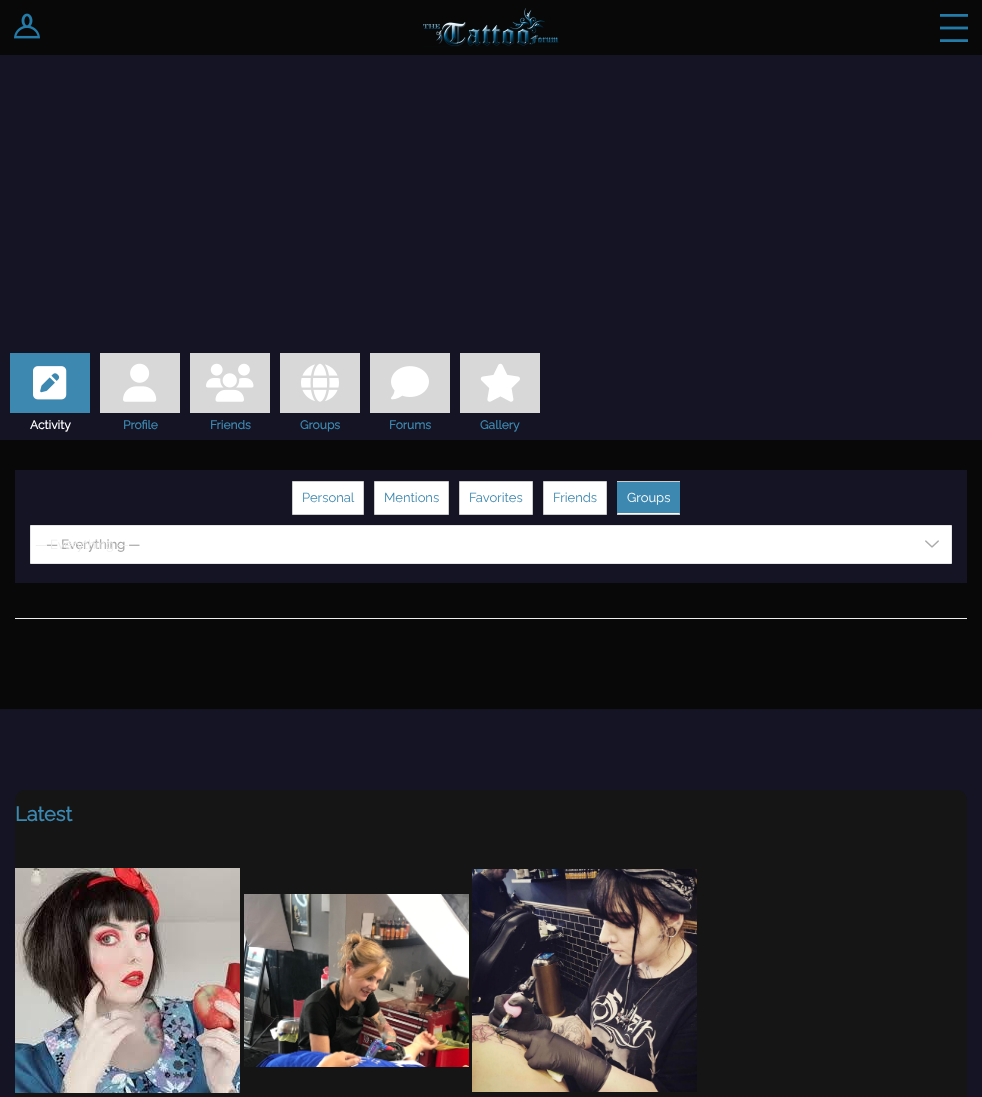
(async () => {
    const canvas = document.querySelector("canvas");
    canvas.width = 982;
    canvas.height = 1097;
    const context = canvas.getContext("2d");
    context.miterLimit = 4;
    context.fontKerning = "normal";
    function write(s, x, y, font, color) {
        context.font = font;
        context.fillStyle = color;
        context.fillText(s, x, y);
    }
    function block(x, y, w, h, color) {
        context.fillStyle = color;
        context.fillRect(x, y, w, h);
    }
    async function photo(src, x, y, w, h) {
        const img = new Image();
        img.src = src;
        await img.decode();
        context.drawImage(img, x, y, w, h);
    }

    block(0, 0, 982, 1097, "rgb(8, 8, 8)");
    await photo("media/1.png", 423, 8, 136, 39);
    await photo("media/2.png", 14, 13, 26, 26);
    await photo("media/3.png", 940, 14, 28, 28);
    block(0, 55, 982, 385, "rgb(21, 20, 36)");
    block(10, 353, 80, 60, "rgb(61, 136, 176)");
    await photo("media/4.png", 33, 366, 34, 34);
    write("Activity", 30, 429, "bold 12px Raleway", "rgb(255, 255, 255)");
    block(100, 353, 80, 60, "rgb(216, 216, 216)");
    await photo("media/5.png", 123, 363, 34, 39);
    write("Profile", 123, 429, "bold 12px Raleway", "rgb(61, 136, 176)");
    block(190, 353, 80, 60, "rgb(216, 216, 216)");
    await photo("media/6.png", 206, 363, 48, 39);
    write("Friends", 210, 429, "bold 12px Raleway", "rgb(61, 136, 176)");
    block(280, 353, 80, 60, "rgb(216, 216, 216)");
    await photo("media/7.png", 301, 363, 38, 39);
    write("Groups", 300, 429, "bold 12px Raleway", "rgb(61, 136, 176)");
    block(370, 353, 80, 60, "rgb(216, 216, 216)");
    await photo("media/8.png", 391, 366, 38, 34);
    write("Forums", 389, 429, "bold 12px Raleway", "rgb(61, 136, 176)");
    block(460, 353, 80, 60, "rgb(216, 216, 216)");
    await photo("media/9.png", 480, 363, 40, 39);
    write("Gallery", 480, 429, "bold 12px Raleway", "rgb(61, 136, 176)");
    block(15, 618, 952, 1, "rgb(238, 238, 238)");
    block(15, 470, 952, 113, "rgb(21, 20, 36)");
    context.fillStyle = "rgb(255, 255, 255)";
    context.beginPath();
    context.rect(292.5, 481.5, 71, 33);
    context.fill();
    context.strokeStyle = "rgb(204, 204, 204)";
    context.stroke();
    write("Personal", 302, 502, "100 13px Raleway", "rgb(61, 136, 176)");
    context.fillStyle = "rgb(255, 255, 255)";
    context.beginPath();
    context.rect(374.5, 481.5, 74, 33);
    context.fill();
    context.stroke();
    write("Mentions", 384, 502, "100 13px Raleway", "rgb(61, 136, 176)");
    context.fillStyle = "rgb(255, 255, 255)";
    context.beginPath();
    context.rect(459.5, 481.5, 73, 33);
    context.fill();
    context.stroke();
    write("Favorites", 469, 502, "100 13px Raleway", "rgb(61, 136, 176)");
    context.fillStyle = "rgb(255, 255, 255)";
    context.beginPath();
    context.rect(543.5, 481.5, 63, 33);
    context.fill();
    context.stroke();
    write("Friends", 553, 502, "100 13px Raleway", "rgb(61, 136, 176)");
    block(618, 513, 61, 1, "rgb(255, 255, 255)");
    context.strokeRect(617.5, 481.5, 62, 33);
    block(617, 482, 63, 31, "rgb(61, 136, 176)");
    write("Groups", 627, 502, "100 13px Raleway", "rgb(255, 255, 255)");
    context.beginPath();
    context.rect(30.5, 525.5, 921, 38);
    context.fill();
    context.strokeStyle = "rgb(230, 230, 230)";
    context.stroke();
    write("— Everything —", 46, 549, "bold 13px Raleway", "rgb(170, 170, 170)");
    write("— Everything —", 35, 549, "100 13px Raleway", "rgb(237, 237, 237)");
    await photo("media/10.png", 925, 540, 14, 8);
    block(0, 710, 982, 387, "rgb(21, 20, 36)");
    block(0, 709, 982, 1, "rgb(20, 19, 34)");
    context.fillStyle = "rgb(21, 21, 22)";
    context.beginPath();
    context.moveTo(25, 790);
    context.lineTo(957, 790);
    context.bezierCurveTo(962.5, 790, 967, 794.5, 967, 800);
    context.lineTo(967, 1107);
    context.lineTo(15, 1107);
    context.lineTo(15, 800);
    context.bezierCurveTo(15, 794.5, 19.5, 790, 25, 790);
    context.closePath();
    context.fill();
    write("Latest", 15, 821, "bold 20px Raleway", "rgb(61, 136, 176)");
    await photo("media/11.png", 15, 868, 225, 225);
    await photo("media/12.png", 244, 894, 225, 173);
    await photo("media/13.png", 472, 869, 225, 223);
})();
